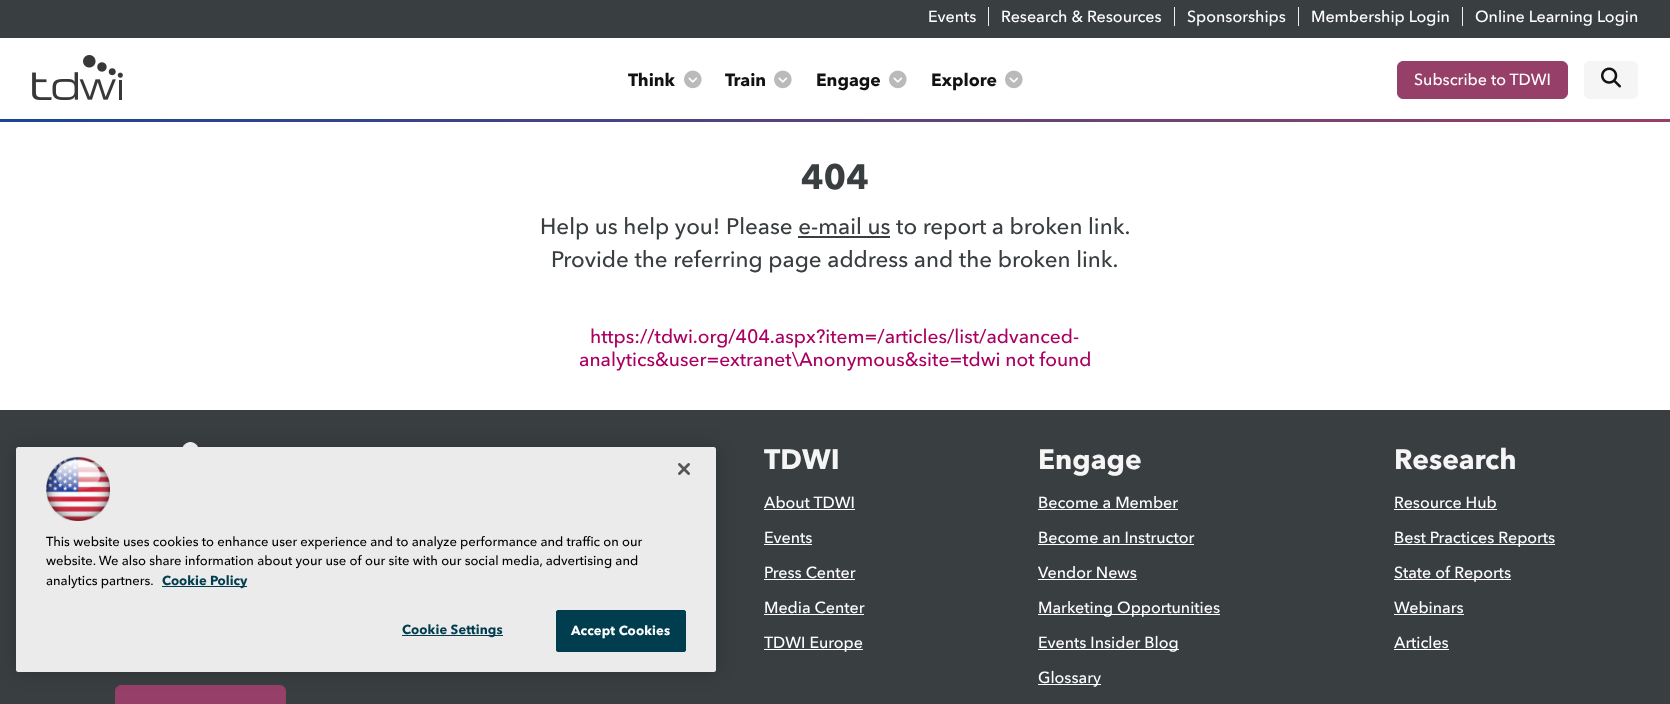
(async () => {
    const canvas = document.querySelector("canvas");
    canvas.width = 1670;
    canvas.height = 704;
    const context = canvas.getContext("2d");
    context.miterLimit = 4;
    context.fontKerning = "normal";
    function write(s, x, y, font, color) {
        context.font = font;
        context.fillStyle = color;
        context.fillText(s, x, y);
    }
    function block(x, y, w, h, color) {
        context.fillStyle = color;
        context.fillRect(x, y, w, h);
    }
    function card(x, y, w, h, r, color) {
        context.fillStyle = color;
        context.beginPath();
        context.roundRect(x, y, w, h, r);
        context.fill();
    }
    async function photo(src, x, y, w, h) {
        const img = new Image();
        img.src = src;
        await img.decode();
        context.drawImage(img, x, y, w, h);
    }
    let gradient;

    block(0, 0, 1670, 704, "rgb(255, 255, 255)");
    block(0, 410, 1670, 294, "rgb(57, 62, 65)");
    await photo("media/6.png", 182, 442, 16, 5);
    context.fillStyle = "rgb(150, 64, 105)";
    context.beginPath();
    context.roundRect(115.5, 685.5, 170, 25, 5.5);
    context.fill();
    context.strokeStyle = "rgb(150, 64, 105)";
    context.stroke();
    context.fillStyle = "rgba(0, 0, 0, 0.2)";
    context.filter = "blur(9px)";
    context.beginPath();
    context.roundRect(16, 447, 700, 225, 2.5);
    context.fill();
    context.filter = "none";
    card(16, 447, 700, 225, 2.5, "rgb(235, 235, 235)");
    await photo("media/1.png", 678, 463, 12, 12);
    await photo("media/2.png", 46, 456, 64, 65);
    write("This website uses cookies to enhance user experience and to analyze performance and traffic on our", 46, 546, "500 13px Avenir Next", "rgb(0, 0, 0)");
    write("website. We also share information about your use of our site with our social media, advertising and", 46, 565, "500 13px Avenir Next", "rgb(0, 0, 0)");
    write("analytics partners.", 46, 585, "500 13px Avenir Next", "rgb(0, 0, 0)");
    block(162, 586, 85, 1, "rgb(0, 61, 79)");
    write("Cookie Policy", 162, 585, "bold 13px Avenir Next", "rgb(0, 61, 79)");
    block(402, 635, 101, 1, "rgb(0, 61, 79)");
    context.letterSpacing = "0.1px";
    write("Cookie Settings", 402, 634, "bold 13px Avenir Next", "rgb(0, 61, 79)");
    context.beginPath();
    context.roundRect(556.5, 610.5, 129, 41, 1.5);
    context.fill();
    context.strokeStyle = "rgb(0, 61, 79)";
    context.stroke();
    write("Accept Cookies", 571, 635, "bold 13px Avenir Next", "rgb(255, 255, 255)");
    block(0, 0, 1670, 38, "rgb(57, 62, 65)");
    context.letterSpacing = "0px";
    write("Events", 928, 22, "500 16px Avenir Next", "rgb(255, 255, 255)");
    block(988, 7, 1, 19, "rgb(240, 240, 240)");
    write("Research & Resources", 1001, 22, "500 16px Avenir Next", "rgb(255, 255, 255)");
    block(1174, 7, 1, 19, "rgb(240, 240, 240)");
    write("Sponsorships", 1187, 22, "500 16px Avenir Next", "rgb(255, 255, 255)");
    block(1298, 7, 1, 19, "rgb(240, 240, 240)");
    write("Membership Login", 1311, 22, "500 16px Avenir Next", "rgb(255, 255, 255)");
    block(1462, 7, 1, 19, "rgb(240, 240, 240)");
    write("Online Learning Login", 1475, 22, "500 16px Avenir Next", "rgb(255, 255, 255)");
    await photo("media/3.png", 32, 55, 91, 45);
    write("Think", 628, 86, "bold 17.5px Avenir Next", "rgb(18, 18, 18)");
    await photo("media/4.png", 684, 70, 18, 19);
    write("Train", 725, 86, "bold 17.5px Avenir Next", "rgb(18, 18, 18)");
    await photo("media/4.png", 774, 70, 18, 19);
    write("Engage", 816, 86, "bold 17.5px Avenir Next", "rgb(18, 18, 18)");
    await photo("media/4.png", 889, 70, 18, 19);
    write("Explore", 931, 86, "bold 17.5px Avenir Next", "rgb(18, 18, 18)");
    await photo("media/4.png", 1005, 70, 18, 19);
    context.fillStyle = "rgb(150, 64, 105)";
    context.beginPath();
    context.roundRect(1397.5, 61.5, 170, 37, 5.5);
    context.fill();
    context.strokeStyle = "rgb(150, 64, 105)";
    context.stroke();
    write("Subscribe to TDWI", 1414, 85, "500 16px Avenir Next", "rgb(255, 255, 255)");
    card(1584, 61, 54, 38, 6, "rgb(245, 245, 245)");
    await photo("media/5.png", 1601, 67, 20, 21);
    gradient = context.createLinearGradient(0, 121, 1670, 120);
    gradient.addColorStop(0, "rgb(27, 70, 146)");
    gradient.addColorStop(1, "rgb(150, 64, 105)");
    context.fillStyle = gradient;
    context.fillRect(0, 119, 1670, 3);
    write("404", 801, 189, "bold 35px Avenir Next", "rgb(57, 62, 65)");
    write("Help us help you! Please e-mail us to report a broken link.", 540, 234, "500 22.4px Avenir Next", "rgb(57, 62, 65)");
    block(798, 236, 92, 2, "rgb(57, 62, 65)");
    write("Provide the referring page address and the broken link.", 551, 267, "500 22.4px Avenir Next", "rgb(57, 62, 65)");
    write("https://tdwi.org/404.aspx?item=/articles/list/advanced-", 590, 343, "500 19.2px Avenir Next", "rgb(169, 0, 98)");
    write("analytics&user=extranet\\Anonymous&site=tdwi not found", 579, 366, "500 19.2px Avenir Next", "rgb(169, 0, 98)");
    write("TDWI", 764, 469, "bold 28px Avenir Next", "rgb(245, 245, 245)");
    write("About TDWI", 764, 508, "500 16px Avenir Next", "rgb(255, 255, 255)");
    block(764, 509, 91, 1, "rgb(255, 255, 255)");
    write("Events", 764, 543, "500 16px Avenir Next", "rgb(255, 255, 255)");
    block(764, 544, 48, 1, "rgb(255, 255, 255)");
    write("Press Center", 764, 578, "500 16px Avenir Next", "rgb(255, 255, 255)");
    block(764, 579, 91, 1, "rgb(255, 255, 255)");
    write("Media Center", 764, 613, "500 16px Avenir Next", "rgb(255, 255, 255)");
    block(764, 614, 100, 1, "rgb(255, 255, 255)");
    block(764, 649, 99, 1, "rgb(255, 255, 255)");
    write("TDWI Europe", 764, 648, "500 16px Avenir Next", "rgb(255, 255, 255)");
    write("Engage", 1038, 469, "bold 28px Avenir Next", "rgb(245, 245, 245)");
    write("Become a Member", 1038, 508, "500 16px Avenir Next", "rgb(255, 255, 255)");
    block(1038, 509, 140, 1, "rgb(255, 255, 255)");
    write("Become an Instructor", 1038, 543, "500 16px Avenir Next", "rgb(255, 255, 255)");
    block(1038, 544, 156, 1, "rgb(255, 255, 255)");
    write("Vendor News", 1038, 578, "500 16px Avenir Next", "rgb(255, 255, 255)");
    block(1038, 579, 99, 1, "rgb(255, 255, 255)");
    block(1038, 614, 182, 1, "rgb(255, 255, 255)");
    write("Marketing Opportunities", 1038, 613, "500 16px Avenir Next", "rgb(255, 255, 255)");
    block(1038, 649, 141, 1, "rgb(255, 255, 255)");
    write("Events Insider Blog", 1038, 648, "500 16px Avenir Next", "rgb(255, 255, 255)");
    block(1038, 684, 63, 1, "rgb(255, 255, 255)");
    write("Glossary", 1038, 683, "500 16px Avenir Next", "rgb(255, 255, 255)");
    write("Research", 1394, 469, "bold 28px Avenir Next", "rgb(245, 245, 245)");
    write("Resource Hub", 1394, 508, "500 16px Avenir Next", "rgb(255, 255, 255)");
    block(1394, 509, 103, 1, "rgb(255, 255, 255)");
    block(1394, 544, 161, 1, "rgb(255, 255, 255)");
    write("Best Practices Reports", 1394, 543, "500 16px Avenir Next", "rgb(255, 255, 255)");
    block(1394, 579, 117, 1, "rgb(255, 255, 255)");
    write("State of Reports", 1394, 578, "500 16px Avenir Next", "rgb(255, 255, 255)");
    write("Webinars", 1394, 613, "500 16px Avenir Next", "rgb(255, 255, 255)");
    block(1394, 614, 70, 1, "rgb(255, 255, 255)");
    write("Articles", 1394, 648, "500 16px Avenir Next", "rgb(255, 255, 255)");
    block(1394, 649, 55, 1, "rgb(255, 255, 255)");
})();
